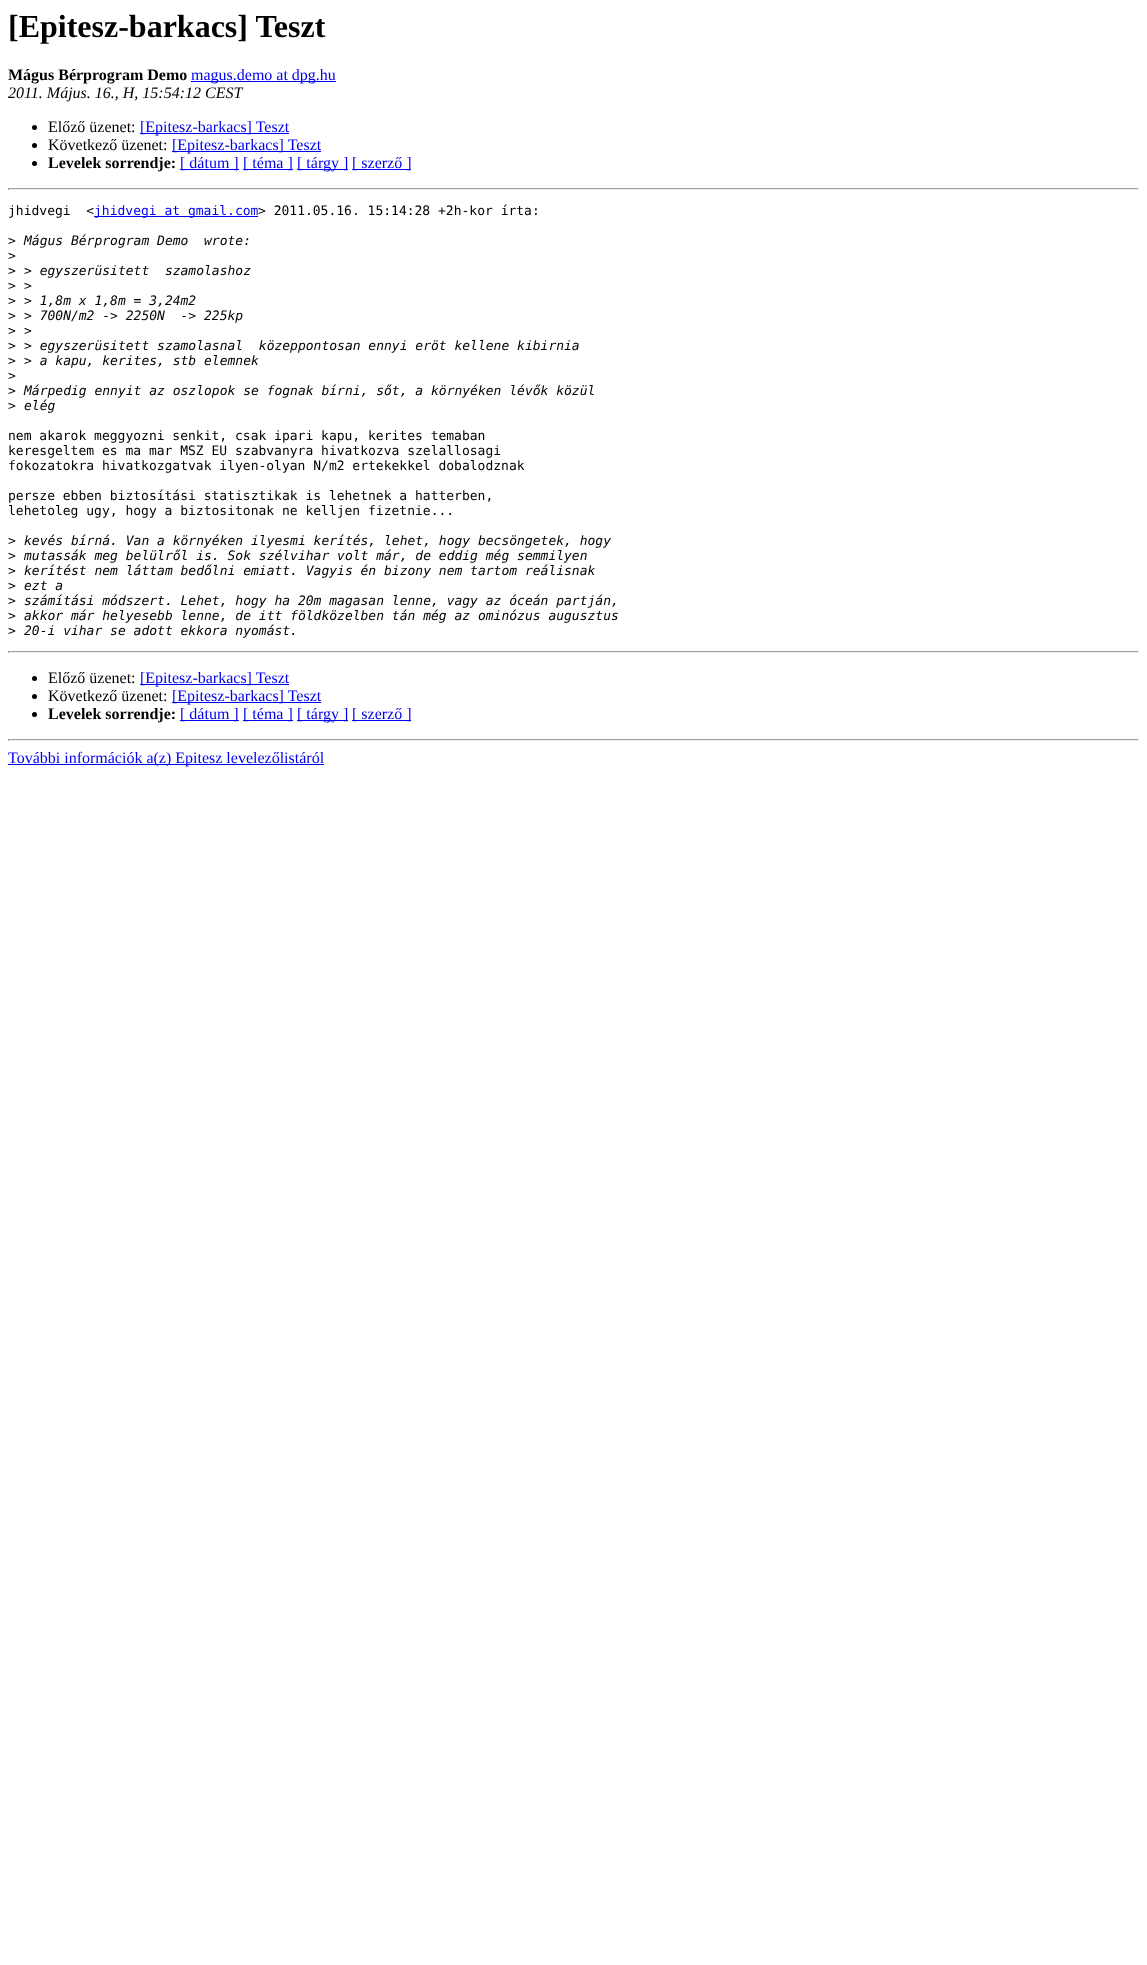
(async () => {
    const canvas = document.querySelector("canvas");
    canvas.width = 1147;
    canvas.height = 1965;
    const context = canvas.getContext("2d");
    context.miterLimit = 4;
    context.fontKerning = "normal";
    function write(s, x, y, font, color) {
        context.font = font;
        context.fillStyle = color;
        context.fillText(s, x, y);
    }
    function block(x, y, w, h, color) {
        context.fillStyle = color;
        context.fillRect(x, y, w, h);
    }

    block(0, 0, 1147, 1965, "rgb(255, 255, 255)");
    write("[Epitesz-barkacs] Teszt", 8, 37, "bold 32px Liberation Serif", "rgb(0, 0, 0)");
    write("Mágus Bérprogram Demo", 8, 80, "bold 16px Liberation Serif", "rgb(0, 0, 0)");
    block(191, 81, 145, 1, "rgb(0, 0, 238)");
    write("magus.demo at dpg.hu", 191, 80, "16px Liberation Serif", "rgb(0, 0, 238)");
    write("2011. Május. 16., H, 15:54:12 CEST", 8, 98, "italic 16px Liberation Serif", "rgb(0, 0, 0)");
    context.beginPath();
    context.arc(34.5, 127.5, 2.5, 0, Math.PI * 2);
    context.fill();
    write("Előző üzenet:", 48, 132, "16px Liberation Serif", "rgb(0, 0, 0)");
    block(140, 133, 149, 1, "rgb(0, 0, 238)");
    write("[Epitesz-barkacs] Teszt", 140, 132, "16px Liberation Serif", "rgb(0, 0, 238)");
    context.fillStyle = "rgb(0, 0, 0)";
    context.beginPath();
    context.arc(34.5, 145.5, 2.5, 0, Math.PI * 2);
    context.fill();
    write("Következő üzenet:", 48, 150, "16px Liberation Serif", "rgb(0, 0, 0)");
    block(172, 151, 149, 1, "rgb(0, 0, 238)");
    write("[Epitesz-barkacs] Teszt", 172, 150, "16px Liberation Serif", "rgb(0, 0, 238)");
    context.fillStyle = "rgb(0, 0, 0)";
    context.beginPath();
    context.arc(34.5, 163.5, 2.5, 0, Math.PI * 2);
    context.fill();
    write("Levelek sorrendje:", 48, 168, "bold 16px Liberation Serif", "rgb(0, 0, 0)");
    block(180, 169, 59, 1, "rgb(0, 0, 238)");
    write("[ dátum ]", 180, 168, "16px Liberation Serif", "rgb(0, 0, 238)");
    block(243, 169, 50, 1, "rgb(0, 0, 238)");
    write("[ téma ]", 243, 168, "16px Liberation Serif", "rgb(0, 0, 238)");
    block(297, 169, 51, 1, "rgb(0, 0, 238)");
    write("[ tárgy ]", 297, 168, "16px Liberation Serif", "rgb(0, 0, 238)");
    block(352, 169, 59, 1, "rgb(0, 0, 238)");
    write("[ szerző ]", 352, 168, "16px Liberation Serif", "rgb(0, 0, 238)");
    block(8, 188, 1131, 1, "rgb(159, 159, 159)");
    block(1138, 188, 1, 2, "rgb(238, 238, 238)");
    block(8, 189, 1131, 1, "rgb(238, 238, 238)");
    block(8, 188, 1, 2, "rgb(159, 159, 159)");
    write("jhidvegi  <", 8, 215, "13px DejaVu Sans Mono", "rgb(0, 0, 0)");
    block(94, 216, 164, 1, "rgb(0, 0, 238)");
    write("jhidvegi at gmail.com", 94, 215, "13px DejaVu Sans Mono", "rgb(0, 0, 238)");
    write("> 2011.05.16. 15:14:28 +2h-kor írta:", 258, 215, "13px DejaVu Sans Mono", "rgb(0, 0, 0)");
    write(">", 8, 245, "13px DejaVu Sans Mono", "rgb(0, 0, 0)");
    write("Mágus Bérprogram Demo  wrote:", 24, 245, "italic 13px DejaVu Sans Mono", "rgb(0, 0, 0)");
    write(">", 8, 260, "13px DejaVu Sans Mono", "rgb(0, 0, 0)");
    write(">", 8, 275, "13px DejaVu Sans Mono", "rgb(0, 0, 0)");
    write("> egyszerüsitett  szamolashoz", 24, 275, "italic 13px DejaVu Sans Mono", "rgb(0, 0, 0)");
    write(">", 8, 290, "13px DejaVu Sans Mono", "rgb(0, 0, 0)");
    write(">", 24, 290, "italic 13px DejaVu Sans Mono", "rgb(0, 0, 0)");
    write(">", 8, 305, "13px DejaVu Sans Mono", "rgb(0, 0, 0)");
    write("> 1,8m x 1,8m = 3,24m2", 24, 305, "italic 13px DejaVu Sans Mono", "rgb(0, 0, 0)");
    write(">", 8, 320, "13px DejaVu Sans Mono", "rgb(0, 0, 0)");
    write("> 700N/m2 -> 2250N  -> 225kp", 24, 320, "italic 13px DejaVu Sans Mono", "rgb(0, 0, 0)");
    write(">", 8, 335, "13px DejaVu Sans Mono", "rgb(0, 0, 0)");
    write(">", 24, 335, "italic 13px DejaVu Sans Mono", "rgb(0, 0, 0)");
    write(">", 8, 350, "13px DejaVu Sans Mono", "rgb(0, 0, 0)");
    write("> egyszerüsitett szamolasnal  közeppontosan ennyi eröt kellene kibirnia", 24, 350, "italic 13px DejaVu Sans Mono", "rgb(0, 0, 0)");
    write(">", 8, 365, "13px DejaVu Sans Mono", "rgb(0, 0, 0)");
    write("> a kapu, kerites, stb elemnek", 24, 365, "italic 13px DejaVu Sans Mono", "rgb(0, 0, 0)");
    write(">", 8, 380, "13px DejaVu Sans Mono", "rgb(0, 0, 0)");
    write(">", 8, 395, "13px DejaVu Sans Mono", "rgb(0, 0, 0)");
    write("Márpedig ennyit az oszlopok se fognak bírni, sőt, a környéken lévők közül", 24, 395, "italic 13px DejaVu Sans Mono", "rgb(0, 0, 0)");
    write(">", 8, 410, "13px DejaVu Sans Mono", "rgb(0, 0, 0)");
    write("elég", 24, 410, "italic 13px DejaVu Sans Mono", "rgb(0, 0, 0)");
    write("nem akarok meggyozni senkit, csak ipari kapu, kerites temaban", 8, 440, "13px DejaVu Sans Mono", "rgb(0, 0, 0)");
    write("keresgeltem es ma mar MSZ EU szabvanyra hivatkozva szelallosagi", 8, 455, "13px DejaVu Sans Mono", "rgb(0, 0, 0)");
    write("fokozatokra hivatkozgatvak ilyen-olyan N/m2 ertekekkel dobalodznak", 8, 470, "13px DejaVu Sans Mono", "rgb(0, 0, 0)");
    write("persze ebben biztosítási statisztikak is lehetnek a hatterben,", 8, 500, "13px DejaVu Sans Mono", "rgb(0, 0, 0)");
    write("lehetoleg ugy, hogy a biztositonak ne kelljen fizetnie...", 8, 515, "13px DejaVu Sans Mono", "rgb(0, 0, 0)");
    write(">", 8, 545, "13px DejaVu Sans Mono", "rgb(0, 0, 0)");
    write("kevés bírná. Van a környéken ilyesmi kerítés, lehet, hogy becsöngetek, hogy", 24, 545, "italic 13px DejaVu Sans Mono", "rgb(0, 0, 0)");
    write(">", 8, 560, "13px DejaVu Sans Mono", "rgb(0, 0, 0)");
    write("mutassák meg belülről is. Sok szélvihar volt már, de eddig még semmilyen", 24, 560, "italic 13px DejaVu Sans Mono", "rgb(0, 0, 0)");
    write(">", 8, 575, "13px DejaVu Sans Mono", "rgb(0, 0, 0)");
    write("kerítést nem láttam bedőlni emiatt. Vagyis én bizony nem tartom reálisnak", 24, 575, "italic 13px DejaVu Sans Mono", "rgb(0, 0, 0)");
    write(">", 8, 590, "13px DejaVu Sans Mono", "rgb(0, 0, 0)");
    write("ezt a", 24, 590, "italic 13px DejaVu Sans Mono", "rgb(0, 0, 0)");
    write(">", 8, 605, "13px DejaVu Sans Mono", "rgb(0, 0, 0)");
    write("számítási módszert. Lehet, hogy ha 20m magasan lenne, vagy az óceán partján,", 24, 605, "italic 13px DejaVu Sans Mono", "rgb(0, 0, 0)");
    write(">", 8, 620, "13px DejaVu Sans Mono", "rgb(0, 0, 0)");
    write("akkor már helyesebb lenne, de itt földközelben tán még az ominózus augusztus", 24, 620, "italic 13px DejaVu Sans Mono", "rgb(0, 0, 0)");
    write(">", 8, 635, "13px DejaVu Sans Mono", "rgb(0, 0, 0)");
    write("20-i vihar se adott ekkora nyomást.", 24, 635, "italic 13px DejaVu Sans Mono", "rgb(0, 0, 0)");
    block(8, 651, 1131, 1, "rgb(159, 159, 159)");
    block(1138, 651, 1, 2, "rgb(238, 238, 238)");
    block(8, 652, 1131, 1, "rgb(238, 238, 238)");
    block(8, 651, 1, 2, "rgb(159, 159, 159)");
    context.fillStyle = "rgb(0, 0, 0)";
    context.beginPath();
    context.arc(34.5, 678.5, 2.5, 0, Math.PI * 2);
    context.fill();
    write("Előző üzenet:", 48, 683, "16px Liberation Serif", "rgb(0, 0, 0)");
    block(140, 684, 149, 1, "rgb(0, 0, 238)");
    write("[Epitesz-barkacs] Teszt", 140, 683, "16px Liberation Serif", "rgb(0, 0, 238)");
    context.fillStyle = "rgb(0, 0, 0)";
    context.beginPath();
    context.arc(34.5, 696.5, 2.5, 0, Math.PI * 2);
    context.fill();
    write("Következő üzenet:", 48, 701, "16px Liberation Serif", "rgb(0, 0, 0)");
    block(172, 702, 149, 1, "rgb(0, 0, 238)");
    write("[Epitesz-barkacs] Teszt", 172, 701, "16px Liberation Serif", "rgb(0, 0, 238)");
    context.fillStyle = "rgb(0, 0, 0)";
    context.beginPath();
    context.arc(34.5, 714.5, 2.5, 0, Math.PI * 2);
    context.fill();
    write("Levelek sorrendje:", 48, 719, "bold 16px Liberation Serif", "rgb(0, 0, 0)");
    block(180, 720, 59, 1, "rgb(0, 0, 238)");
    write("[ dátum ]", 180, 719, "16px Liberation Serif", "rgb(0, 0, 238)");
    block(243, 720, 50, 1, "rgb(0, 0, 238)");
    write("[ téma ]", 243, 719, "16px Liberation Serif", "rgb(0, 0, 238)");
    block(297, 720, 51, 1, "rgb(0, 0, 238)");
    write("[ tárgy ]", 297, 719, "16px Liberation Serif", "rgb(0, 0, 238)");
    block(352, 720, 59, 1, "rgb(0, 0, 238)");
    write("[ szerző ]", 352, 719, "16px Liberation Serif", "rgb(0, 0, 238)");
    block(8, 739, 1131, 1, "rgb(159, 159, 159)");
    block(1138, 739, 1, 2, "rgb(238, 238, 238)");
    block(8, 740, 1131, 1, "rgb(238, 238, 238)");
    block(8, 739, 1, 2, "rgb(159, 159, 159)");
    block(8, 764, 316, 1, "rgb(0, 0, 238)");
    write("További információk a(z) Epitesz levelezőlistáról", 8, 763, "16px Liberation Serif", "rgb(0, 0, 238)");
})();
